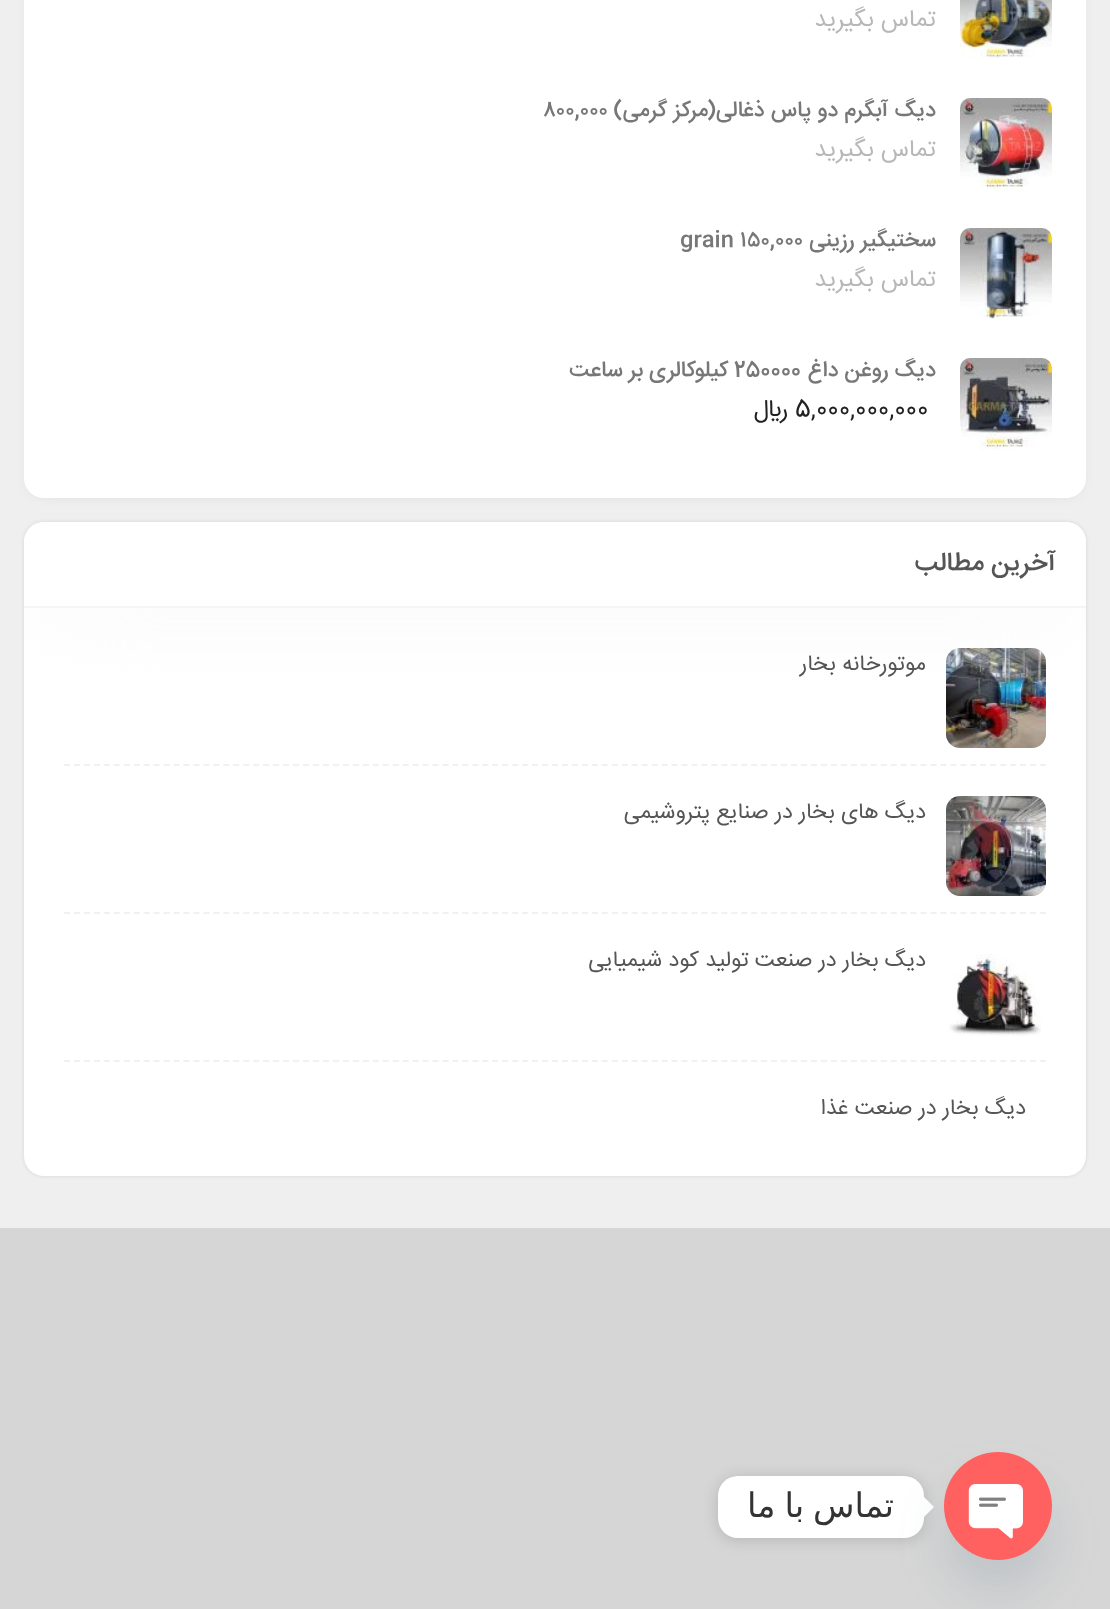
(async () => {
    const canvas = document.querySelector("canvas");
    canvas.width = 1110;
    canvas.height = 1609;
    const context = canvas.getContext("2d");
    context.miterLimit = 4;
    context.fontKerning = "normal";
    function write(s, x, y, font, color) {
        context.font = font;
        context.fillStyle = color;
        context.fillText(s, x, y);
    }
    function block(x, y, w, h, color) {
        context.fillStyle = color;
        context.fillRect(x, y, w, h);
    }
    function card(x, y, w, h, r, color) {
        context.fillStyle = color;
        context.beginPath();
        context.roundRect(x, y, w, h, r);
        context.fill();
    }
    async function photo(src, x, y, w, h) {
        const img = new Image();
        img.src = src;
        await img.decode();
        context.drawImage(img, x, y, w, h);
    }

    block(0, 0, 1110, 1609, "rgb(239, 239, 239)");
    context.fillStyle = "rgba(0, 0, 0, 0.1)";
    context.filter = "blur(7px)";
    context.beginPath();
    context.roundRect(30, -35, 1050, 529, 14);
    context.fill();
    context.filter = "none";
    card(24, -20, 1062, 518, 20, "rgb(255, 255, 255)");
    await photo("media/1.png", 960, 0, 92, 58);
    context.direction = "rtl";
    write("تماس بگیرید", 936, 26, "24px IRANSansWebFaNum", "rgb(184, 184, 184)");
    await photo("media/2.png", 960, 98, 92, 92);
    write("دیگ آبگرم دو پاس ذغالی(مرکز گرمی)", 936, 116, "500 22px IRANSansWebFaNum", "rgb(119, 119, 119)");
    context.direction = "ltr";
    write("۸۰۰,۰۰۰", 543, 116, "500 22px IRANSansWebFaNum", "rgb(119, 119, 119)");
    context.direction = "rtl";
    write("تماس بگیرید", 936, 156, "24px IRANSansWebFaNum", "rgb(184, 184, 184)");
    await photo("media/3.png", 960, 228, 92, 91);
    write("سختیگیر رزینی", 936, 246, "500 22px IRANSansWebFaNum", "rgb(119, 119, 119)");
    context.direction = "ltr";
    write("grain ۱۵۰,۰۰۰", 680, 246, "500 22px IRANSansWebFaNum", "rgb(119, 119, 119)");
    context.direction = "rtl";
    write("تماس بگیرید", 936, 286, "24px IRANSansWebFaNum", "rgb(184, 184, 184)");
    await photo("media/4.png", 960, 358, 92, 92);
    write("دیگ روغن داغ", 936, 376, "500 22px IRANSansWebFaNum", "rgb(119, 119, 119)");
    context.direction = "ltr";
    write("250000", 734, 376, "500 22px IRANSansWebFaNum", "rgb(119, 119, 119)");
    context.direction = "rtl";
    write("کیلوکالری بر ساعت", 728, 376, "500 22px IRANSansWebFaNum", "rgb(119, 119, 119)");
    context.direction = "ltr";
    write("5,000,000,000", 795, 416, "24px IRANSansWebFaNum", "rgb(33, 33, 33)");
    context.direction = "rtl";
    write("﷼", 788, 416, "24px IRANSansWebFaNum", "rgb(33, 33, 33)");
    context.fillStyle = "rgba(0, 0, 0, 0.1)";
    context.filter = "blur(2px)";
    context.beginPath();
    context.roundRect(24, 522, 1062, 654, 20);
    context.fill();
    context.filter = "none";
    card(24, 522, 1062, 654, 20, "rgb(255, 255, 255)");
    await photo("media/5.png", 946, 648, 100, 100);
    context.save();
    context.beginPath();
    context.roundRect(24, 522, 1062, 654, 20);
    context.clip();
    context.fillStyle = "rgb(245, 245, 245)";
    context.filter = "blur(50px)";
    context.beginPath();
    context.rect(42, 548, 1026, 50);
    context.fill();
    context.filter = "none";
    context.restore();
    context.beginPath();
    context.roundRect(24, 522, 1062, 86, [20, 20, 0, 0]);
    context.fill();
    block(24, 606, 1062, 2, "rgb(245, 245, 245)");
    write("آخرین مطالب", 1056, 570, "500 26px IRANSansWebFaNum", "rgb(85, 85, 85)");
    context.beginPath();
    context.moveTo(64, 765);
    context.lineTo(1046, 765);
    context.strokeStyle = "rgb(239, 241, 245)";
    context.lineWidth = 2;
    context.setLineDash([6, 3.96]);
    context.stroke();
    write("موتورخانه بخار", 926, 670, "22px IRANSansWebFaNum", "rgb(85, 85, 85)");
    context.beginPath();
    context.moveTo(64, 913);
    context.lineTo(1046, 913);
    context.stroke();
    await photo("media/6.png", 946, 796, 100, 100);
    write("دیگ های بخار در صنایع پتروشیمی", 926, 818, "22px IRANSansWebFaNum", "rgb(85, 85, 85)");
    context.beginPath();
    context.moveTo(64, 1061);
    context.lineTo(1046, 1061);
    context.stroke();
    await photo("media/7.png", 949, 954, 92, 82);
    write("دیگ بخار در صنعت تولید کود شیمیایی", 926, 966, "22px IRANSansWebFaNum", "rgb(85, 85, 85)");
    write("دیگ بخار در صنعت غذا", 1026, 1114, "22px IRANSansWebFaNum", "rgb(85, 85, 85)");
    block(0, 1228, 1110, 381, "rgb(214, 214, 214)");
    context.fillStyle = "rgba(0, 0, 0, 0.15)";
    context.filter = "blur(7.5px)";
    context.beginPath();
    context.roundRect(718, 1478, 206, 62, 20);
    context.fill();
    context.filter = "none";
    card(718, 1476, 206, 62, 20, "rgb(255, 255, 255)");
    context.beginPath();
    context.moveTo(924, 1517);
    context.lineTo(924, 1497);
    context.lineTo(934, 1507);
    context.closePath();
    context.fill();
    context.fillStyle = "rgba(73, 104, 126, 0.16)";
    context.filter = "blur(24px)";
    context.beginPath();
    context.roundRect(944, 1484, 108, 108, 54);
    context.fill();
    context.filter = "none";
    await photo("media/8.png", 944, 1452, 108, 108);
    context.wordSpacing = "-2px";
    write("تماس با ما", 894, 1517, "34px DejaVu Sans", "rgb(51, 51, 51)");
})();
